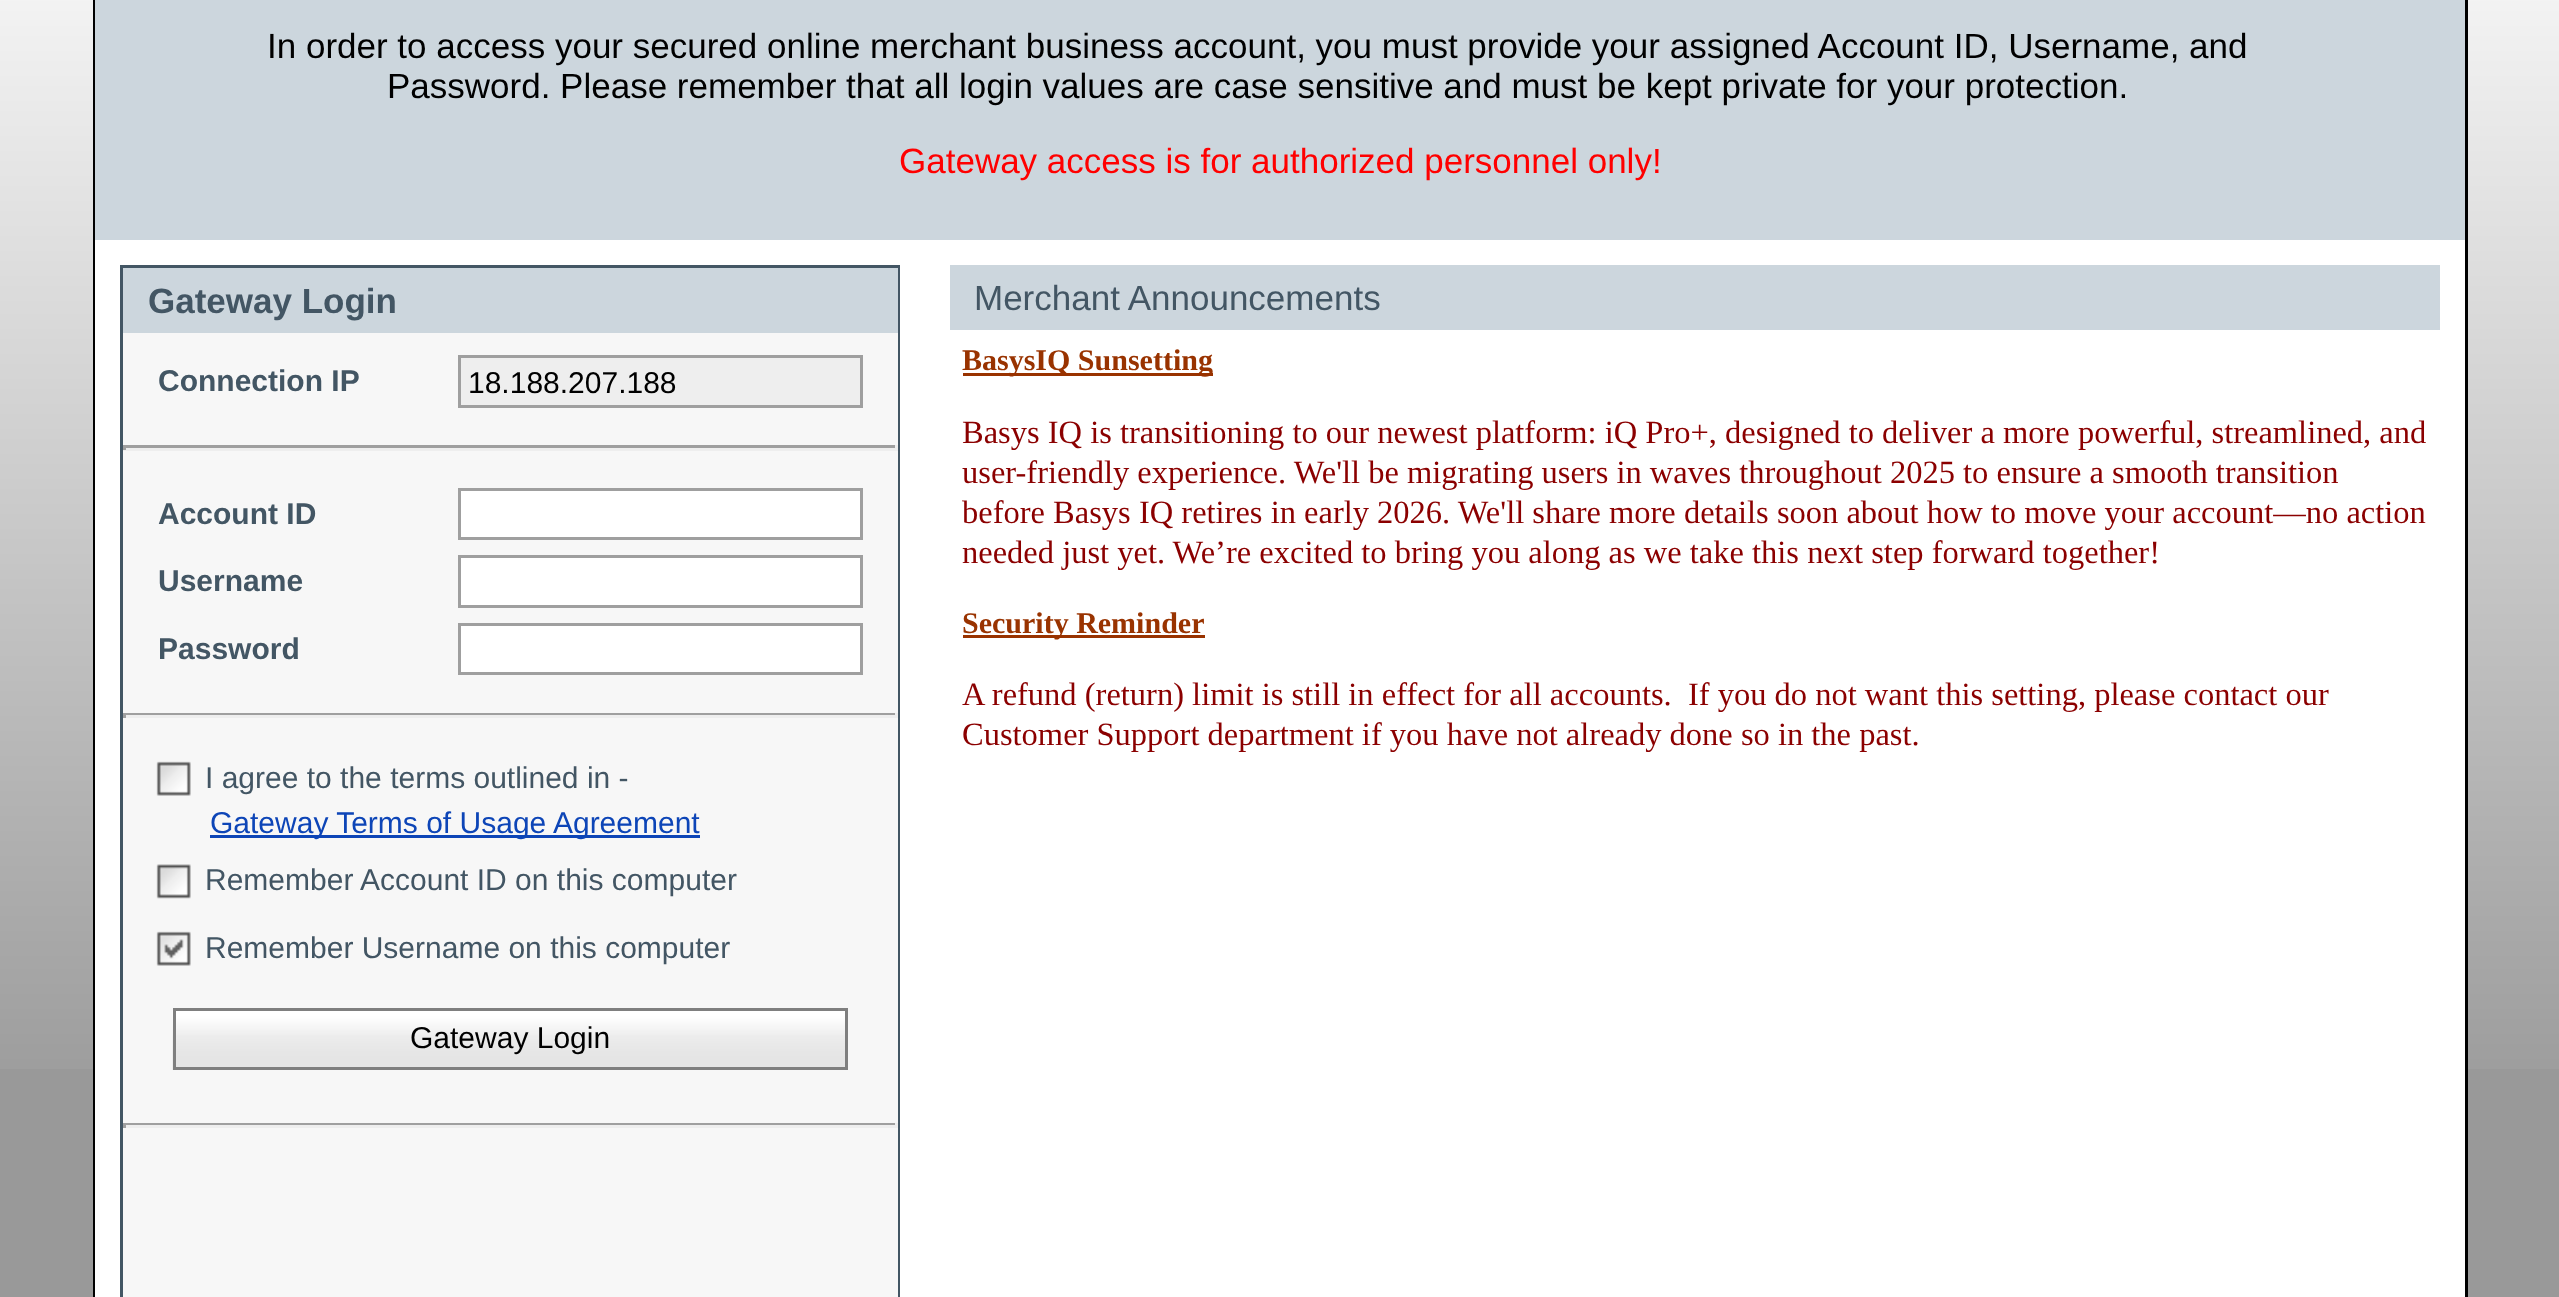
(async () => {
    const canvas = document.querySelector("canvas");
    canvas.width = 2559;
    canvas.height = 1297;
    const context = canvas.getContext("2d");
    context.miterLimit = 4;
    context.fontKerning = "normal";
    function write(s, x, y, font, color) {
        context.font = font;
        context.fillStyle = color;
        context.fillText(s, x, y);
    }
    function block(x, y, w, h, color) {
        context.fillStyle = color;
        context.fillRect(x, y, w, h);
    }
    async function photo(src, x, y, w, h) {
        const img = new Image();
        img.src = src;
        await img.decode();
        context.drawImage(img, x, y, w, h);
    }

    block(0, 0, 2559, 1297, "rgb(153, 153, 153)");
    await photo("media/1.png", 0, 0, 2559, 1069);
    context.strokeStyle = "rgb(0, 0, 0)";
    context.lineWidth = 3;
    context.strokeRect(94.5, -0.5, 2372, 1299);
    block(95, 0, 2370, 240, "rgb(204, 214, 221)");
    write("In order to access your secured online merchant business account, you must provide your assigned Account ID, Username, and", 267, 58, "35px Liberation Sans", "rgb(0, 0, 0)");
    write("Password. Please remember that all login values are case sensitive and must be kept private for your protection.", 387, 98, "35px Liberation Sans", "rgb(0, 0, 0)");
    write("Gateway access is for authorized personnel only!", 899, 173, "35px Liberation Sans", "rgb(255, 0, 0)");
    block(95, 240, 2370, 1057, "rgb(255, 255, 255)");
    context.strokeStyle = "rgb(67, 86, 100)";
    context.strokeRect(121.5, 266.5, 777, 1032);
    block(123, 333, 775, 964, "rgb(247, 247, 247)");
    block(123, 268, 775, 65, "rgb(204, 214, 221)");
    write("Gateway Login", 148, 313, "bold 35px Liberation Sans", "rgb(67, 86, 100)");
    write("Connection IP", 158, 391, "bold 30px Liberation Sans", "rgb(67, 86, 100)");
    context.fillStyle = "rgb(238, 238, 238)";
    context.beginPath();
    context.rect(459.5, 356.5, 402, 50);
    context.fill();
    context.strokeStyle = "rgb(159, 159, 159)";
    context.stroke();
    write("18.188.207.188", 468, 393, "30px Liberation Sans", "rgb(0, 0, 0)");
    block(123, 445, 775, 3, "rgb(159, 159, 159)");
    block(895, 445, 3, 5, "rgb(238, 238, 238)");
    block(123, 448, 775, 3, "rgb(238, 238, 238)");
    block(123, 445, 3, 5, "rgb(159, 159, 159)");
    write("Account ID", 158, 524, "bold 30px Liberation Sans", "rgb(67, 86, 100)");
    context.fillStyle = "rgb(255, 255, 255)";
    context.beginPath();
    context.rect(459.5, 489.5, 402, 49);
    context.fill();
    context.stroke();
    write("Username", 158, 591, "bold 30px Liberation Sans", "rgb(67, 86, 100)");
    context.fillStyle = "rgb(255, 255, 255)";
    context.beginPath();
    context.rect(459.5, 556.5, 402, 50);
    context.fill();
    context.stroke();
    write("Password", 158, 659, "bold 30px Liberation Sans", "rgb(67, 86, 100)");
    context.fillStyle = "rgb(255, 255, 255)";
    context.beginPath();
    context.rect(459.5, 624.5, 402, 49);
    context.fill();
    context.stroke();
    block(123, 713, 775, 2, "rgb(159, 159, 159)");
    block(895, 713, 3, 5, "rgb(238, 238, 238)");
    block(123, 715, 775, 3, "rgb(238, 238, 238)");
    block(123, 713, 3, 5, "rgb(159, 159, 159)");
    await photo("media/2.png", 156, 761, 35, 35);
    write("I agree to the terms outlined in -", 205, 788, "30px Liberation Sans", "rgb(67, 86, 100)");
    block(210, 835, 490, 3, "rgb(13, 69, 183)");
    write("Gateway Terms of Usage Agreement", 210, 833, "30px Liberation Sans", "rgb(13, 69, 183)");
    await photo("media/3.png", 156, 864, 35, 35);
    write("Remember Account ID on this computer", 205, 890, "30px Liberation Sans", "rgb(67, 86, 100)");
    await photo("media/4.png", 156, 931, 35, 35);
    write("Remember Username on this computer", 205, 958, "30px Liberation Sans", "rgb(67, 86, 100)");
    await photo("media/5.png", 172, 1010, 673, 60);
    context.strokeStyle = "rgb(127, 127, 127)";
    context.strokeRect(174.5, 1009.5, 672, 59);
    write("Gateway Login", 410, 1048, "30px Liberation Sans", "rgb(0, 0, 0)");
    block(123, 1123, 775, 2, "rgb(159, 159, 159)");
    block(895, 1123, 3, 5, "rgb(238, 238, 238)");
    block(123, 1125, 775, 3, "rgb(238, 238, 238)");
    block(123, 1123, 3, 5, "rgb(159, 159, 159)");
    block(950, 265, 1490, 65, "rgb(204, 214, 221)");
    write("Merchant Announcements", 974, 310, "35px Liberation Sans", "rgb(67, 86, 100)");
    block(963, 373, 250, 3, "rgb(153, 51, 0)");
    write("BasysIQ Sunsetting", 962, 370, "bold 30px Liberation Serif", "rgb(153, 51, 0)");
    write("Basys IQ is transitioning to our newest platform: iQ Pro+, designed to deliver a more powerful, streamlined, and", 962, 443, "32.5px Liberation Serif", "rgb(139, 0, 0)");
    write("user-friendly experience. We'll be migrating users in waves throughout 2025 to ensure a smooth transition", 962, 483, "32.5px Liberation Serif", "rgb(139, 0, 0)");
    write("before Basys IQ retires in early 2026. We'll share more details soon about how to move your account—no action", 962, 523, "32.5px Liberation Serif", "rgb(139, 0, 0)");
    write("needed just yet. We’re excited to bring you along as we take this next step forward together!", 962, 563, "32.5px Liberation Serif", "rgb(139, 0, 0)");
    block(963, 635, 242, 3, "rgb(153, 51, 0)");
    write("Security Reminder", 962, 633, "bold 30px Liberation Serif", "rgb(153, 51, 0)");
    write("A refund (return) limit is still in effect for all accounts.  If you do not want this setting, please contact our", 962, 705, "32.5px Liberation Serif", "rgb(139, 0, 0)");
    write("Customer Support department if you have not already done so in the past.", 962, 745, "32.5px Liberation Serif", "rgb(139, 0, 0)");
})();
